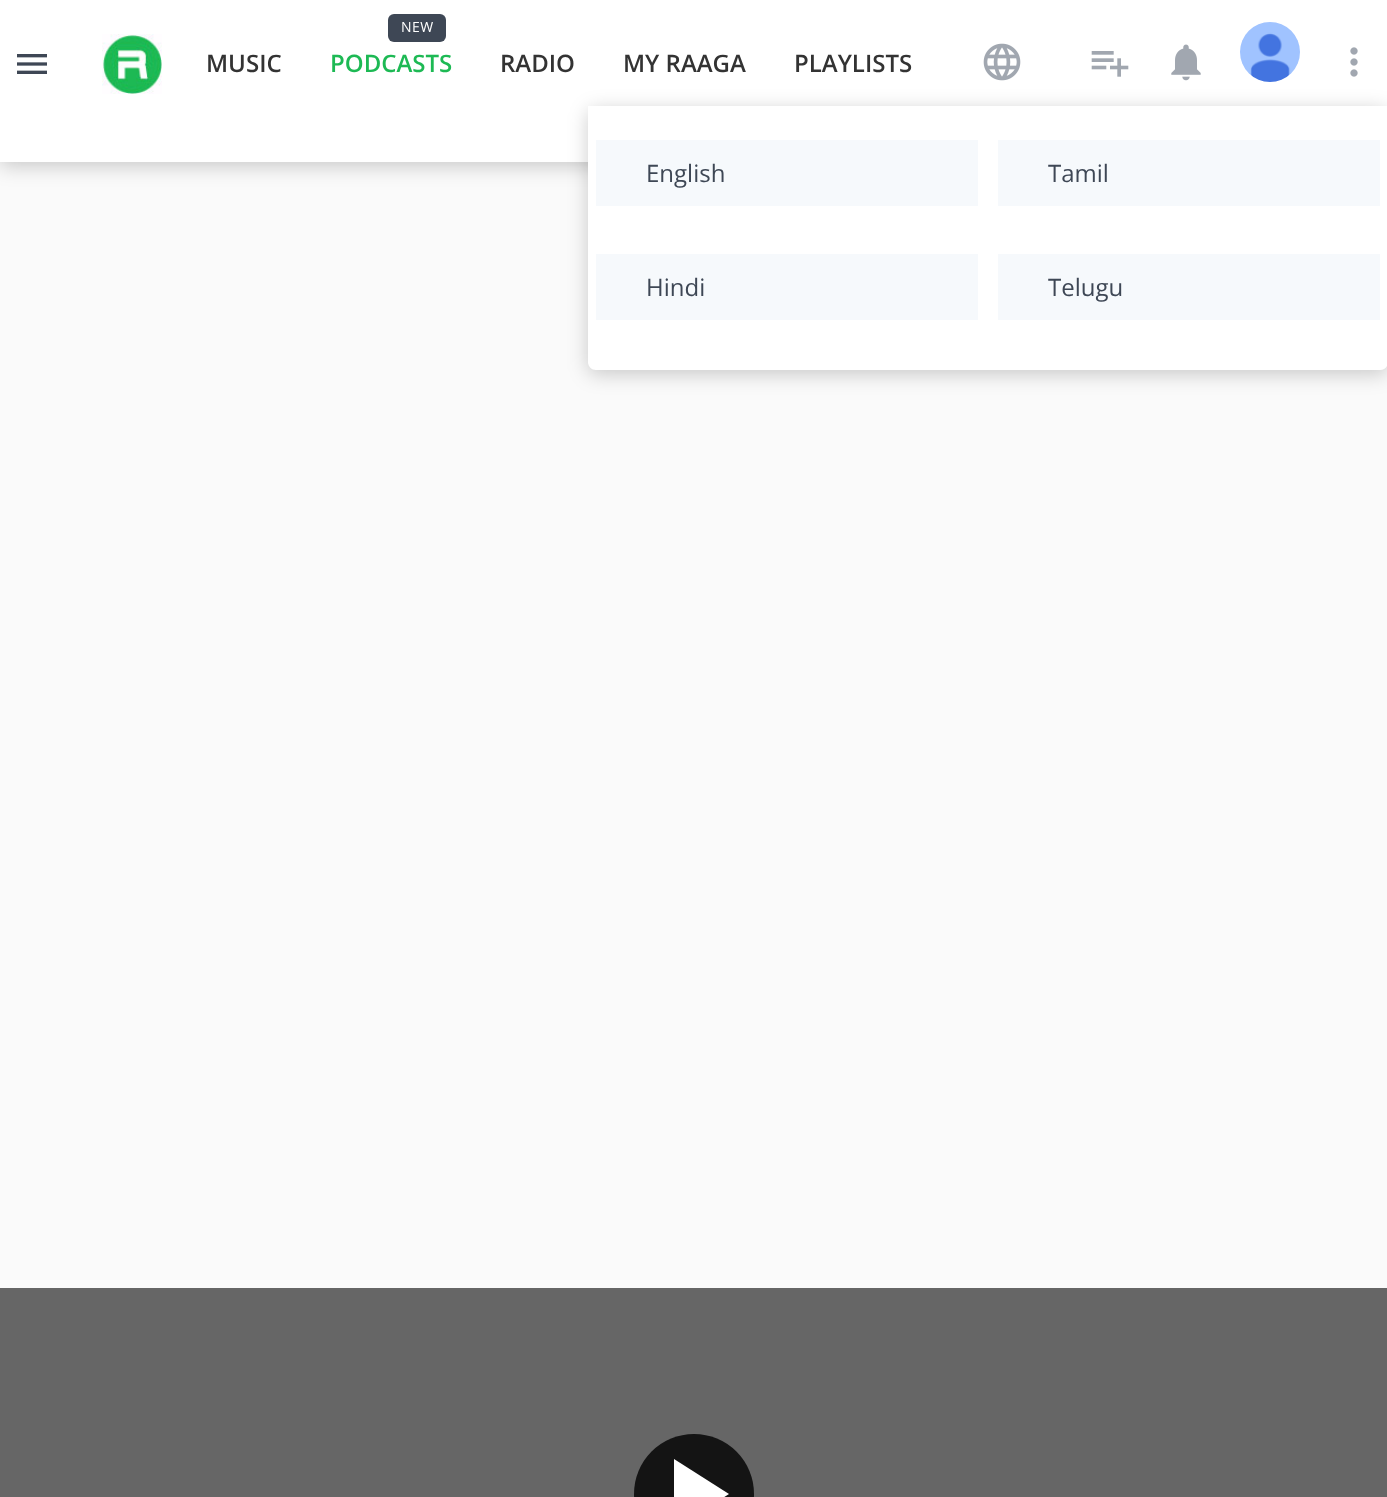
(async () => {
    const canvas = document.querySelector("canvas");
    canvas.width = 1387;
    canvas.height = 1497;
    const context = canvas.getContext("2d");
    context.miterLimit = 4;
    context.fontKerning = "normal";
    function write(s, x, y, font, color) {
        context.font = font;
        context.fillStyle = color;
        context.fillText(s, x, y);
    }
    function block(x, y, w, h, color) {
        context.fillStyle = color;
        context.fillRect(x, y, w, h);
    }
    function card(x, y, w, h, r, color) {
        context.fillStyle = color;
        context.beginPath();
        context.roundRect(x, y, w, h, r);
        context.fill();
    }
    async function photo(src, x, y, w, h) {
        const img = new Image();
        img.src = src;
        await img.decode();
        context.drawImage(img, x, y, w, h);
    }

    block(0, 0, 1387, 1497, "rgb(250, 250, 250)");
    context.fillStyle = "rgba(0, 0, 0, 0.2)";
    context.filter = "blur(10px)";
    context.beginPath();
    context.rect(0, 4, 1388, 162);
    context.fill();
    context.filter = "none";
    block(0, 0, 1387, 162, "rgb(255, 255, 255)");
    await photo("media/1.png", 17, 54, 30, 20);
    await photo("media/2.png", 102, 34, 60, 60);
    write("MUSIC", 206, 72, "600 24px Open Sans", "rgb(51, 51, 51)");
    card(388, 14, 58, 28, 6, "rgb(62, 71, 85)");
    context.letterSpacing = "0.5px";
    write("NEW", 401, 32, "14px Open Sans", "rgb(255, 255, 255)");
    context.letterSpacing = "0px";
    write("PODCASTS", 330, 72, "600 24px Open Sans", "rgb(29, 185, 84)");
    write("RADIO", 500, 72, "600 24px Open Sans", "rgb(51, 51, 51)");
    write("MY RAAGA", 623, 72, "600 24px Open Sans", "rgb(51, 51, 51)");
    write("PLAYLISTS", 794, 72, "600 24px Open Sans", "rgb(51, 51, 51)");
    await photo("media/3.png", 1091, 51, 38, 26);
    await photo("media/4.png", 1171, 44, 30, 37);
    await photo("media/5.png", 1240, 22, 60, 60);
    await photo("media/6.png", 1350, 47, 8, 30);
    await photo("media/7.png", 983, 43, 38, 38);
    context.fillStyle = "rgba(0, 0, 0, 0.2)";
    context.filter = "blur(10px)";
    context.beginPath();
    context.roundRect(588, 110, 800, 264, 8);
    context.fill();
    context.filter = "none";
    context.fillStyle = "rgb(255, 255, 255)";
    context.beginPath();
    context.moveTo(588, 106);
    context.lineTo(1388, 106);
    context.lineTo(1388, 362);
    context.bezierCurveTo(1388, 366.5, 1384.5, 370, 1380, 370);
    context.lineTo(596, 370);
    context.bezierCurveTo(591.5, 370, 588, 366.5, 588, 362);
    context.closePath();
    context.fill();
    block(596, 140, 382, 66, "rgb(246, 249, 252)");
    write("English", 646, 182, "24px Open Sans", "rgb(62, 71, 85)");
    block(998, 140, 382, 66, "rgb(246, 249, 252)");
    write("Tamil", 1048, 182, "24px Open Sans", "rgb(62, 71, 85)");
    block(596, 254, 382, 66, "rgb(246, 249, 252)");
    write("Hindi", 646, 296, "24px Open Sans", "rgb(62, 71, 85)");
    block(998, 254, 382, 66, "rgb(246, 249, 252)");
    write("Telugu", 1048, 296, "24px Open Sans", "rgb(62, 71, 85)");
    block(0, 1288, 1387, 209, "rgb(102, 102, 102)");
    context.fillStyle = "rgb(20, 20, 20)";
    context.beginPath();
    context.arc(694, 1494, 60, 0, Math.PI * 2);
    context.fill();
    context.fillStyle = "rgb(255, 255, 255)";
    context.beginPath();
    context.moveTo(674, 1459);
    context.lineTo(729, 1494);
    context.lineTo(674, 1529);
    context.closePath();
    context.fill();
})();
